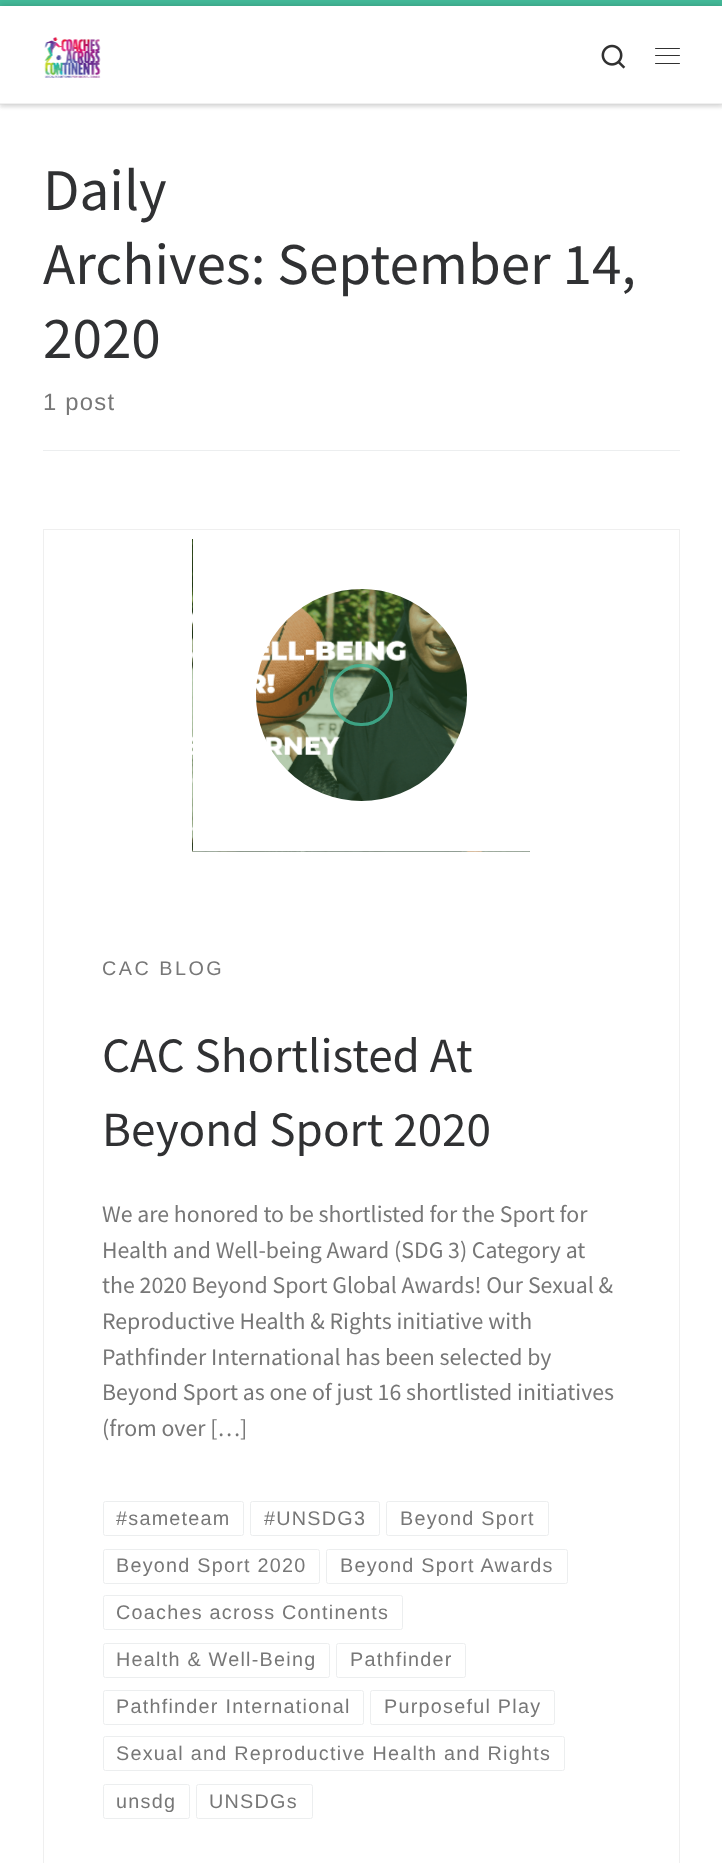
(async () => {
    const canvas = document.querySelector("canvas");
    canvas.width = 722;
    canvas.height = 1863;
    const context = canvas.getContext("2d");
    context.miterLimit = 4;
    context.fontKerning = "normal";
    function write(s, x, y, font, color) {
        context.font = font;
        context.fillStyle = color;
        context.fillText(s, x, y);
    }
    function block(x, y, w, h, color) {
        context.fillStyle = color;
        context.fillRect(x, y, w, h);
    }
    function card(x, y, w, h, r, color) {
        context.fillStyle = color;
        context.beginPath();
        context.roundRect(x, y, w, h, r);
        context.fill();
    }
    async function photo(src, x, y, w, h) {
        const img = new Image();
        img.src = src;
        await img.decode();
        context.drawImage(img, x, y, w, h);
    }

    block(0, 0, 722, 1863, "rgb(255, 255, 255)");
    context.fillStyle = "rgba(102, 102, 102, 0.08)";
    context.filter = "blur(1px)";
    context.beginPath();
    context.rect(0, 3, 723, 105);
    context.fill();
    context.filter = "none";
    block(0, 0, 722, 6, "rgb(67, 186, 153)");
    context.fillStyle = "rgb(239, 239, 239)";
    context.beginPath();
    context.moveTo(0, 104);
    context.lineTo(0, 105);
    context.lineTo(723, 105);
    context.lineTo(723, 8);
    context.lineTo(722, 8);
    context.lineTo(722, 104);
    context.closePath();
    context.fill();
    context.fillStyle = "rgba(0, 0, 0, 0.2)";
    context.filter = "blur(3px)";
    context.beginPath();
    context.rect(0, 6, 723, 98);
    context.fill();
    context.filter = "none";
    block(0, 6, 722, 97, "rgb(255, 255, 255)");
    await photo("media/1.png", 44, 37, 57, 41);
    await photo("media/2.png", 601, 44, 25, 25);
    card(655, 48, 25, 1, 0.5, "rgb(49, 49, 49)");
    card(655, 55, 25, 1, 0.5, "rgb(49, 49, 49)");
    card(655, 63, 25, 1, 0.5, "rgb(49, 49, 49)");
    block(0, 103, 722, 1, "rgb(240, 240, 240)");
    write("Daily", 43, 210, "59.25px Source Sans Pro", "rgb(48, 49, 51)");
    write("Archives: September 14,", 43, 284, "59.25px Source Sans Pro", "rgb(48, 49, 51)");
    write("2020", 43, 358, "59.25px Source Sans Pro", "rgb(48, 49, 51)");
    context.letterSpacing = "1.25px";
    write("1 post", 43, 410, "23.8px Liberation Sans", "rgb(119, 119, 119)");
    block(43, 450, 637, 1, "rgb(236, 238, 239)");
    await photo("media/3.png", 192, 539, 338, 313);
    context.beginPath();
    context.roundRect(331.5, 665.5, 60, 59, 29.5);
    context.strokeStyle = "rgba(67, 186, 153, 0.42)";
    context.lineWidth = 3;
    context.stroke();
    context.beginPath();
    context.roundRect(331.5, 665.5, 60, 59, 29.5);
    context.stroke();
    context.beginPath();
    context.roundRect(331.5, 665.5, 60, 59, 29.5);
    context.stroke();
    context.save();
    context.beginPath();
    context.rect(193, 539, 337, 312);
    context.clip();
    context.beginPath();
    context.roundRect(162, 495, 399, 400, 199.5);
    context.strokeStyle = "rgb(255, 255, 255)";
    context.lineWidth = 188;
    context.stroke();
    context.restore();
    context.beginPath();
    context.roundRect(103.5, 1501.5, 140, 34, 2);
    context.strokeStyle = "rgb(236, 238, 239)";
    context.lineWidth = 1;
    context.stroke();
    context.beginPath();
    context.roundRect(250.5, 1501.5, 129, 34, 2);
    context.stroke();
    context.beginPath();
    context.roundRect(386.5, 1501.5, 162, 34, 2);
    context.stroke();
    context.beginPath();
    context.roundRect(103.5, 1549.5, 216, 34, 2);
    context.stroke();
    context.beginPath();
    context.roundRect(326.5, 1549.5, 241, 34, 2);
    context.stroke();
    context.beginPath();
    context.roundRect(103.5, 1595.5, 299, 34, 2);
    context.stroke();
    context.beginPath();
    context.roundRect(103.5, 1643.5, 226, 34, 2);
    context.stroke();
    context.beginPath();
    context.roundRect(336.5, 1643.5, 129, 34, 2);
    context.stroke();
    context.beginPath();
    context.roundRect(103.5, 1690.5, 260, 34, 2);
    context.stroke();
    context.beginPath();
    context.roundRect(370.5, 1690.5, 184, 34, 2);
    context.stroke();
    context.beginPath();
    context.roundRect(103.5, 1736.5, 461, 34, 2);
    context.stroke();
    context.beginPath();
    context.roundRect(103.5, 1784.5, 86, 34, 2);
    context.stroke();
    context.beginPath();
    context.roundRect(196.5, 1784.5, 116, 34, 2);
    context.stroke();
    context.strokeStyle = "rgb(239, 239, 239)";
    context.strokeRect(43.5, 529.5, 636, 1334);
    context.letterSpacing = "2.5px";
    write("CAC BLOG", 102, 975, "19.8px Liberation Sans", "rgb(119, 119, 119)");
    context.letterSpacing = "0px";
    write("CAC Shortlisted At", 102, 1072, "49.25px Source Sans Pro", "rgb(48, 49, 51)");
    write("Beyond Sport 2020", 102, 1146, "49.25px Source Sans Pro", "rgb(48, 49, 51)");
    write("We are honored to be shortlisted for the Sport for", 102, 1222, "23.8px Source Sans Pro", "rgb(119, 119, 119)");
    write("Health and Well-being Award (SDG 3) Category at", 102, 1258, "23.8px Source Sans Pro", "rgb(119, 119, 119)");
    write("the 2020 Beyond Sport Global Awards! Our Sexual &", 102, 1293, "23.8px Source Sans Pro", "rgb(119, 119, 119)");
    write("Reproductive Health & Rights initiative with", 102, 1329, "23.8px Source Sans Pro", "rgb(119, 119, 119)");
    write("Pathfinder International has been selected by", 102, 1365, "23.8px Source Sans Pro", "rgb(119, 119, 119)");
    write("Beyond Sport as one of just 16 shortlisted initiatives", 102, 1400, "23.8px Source Sans Pro", "rgb(119, 119, 119)");
    write("(from over […]", 102, 1436, "23.8px Source Sans Pro", "rgb(119, 119, 119)");
    context.letterSpacing = "1.25px";
    write("#sameteam", 116, 1525, "19.8px Liberation Sans", "rgb(119, 119, 119)");
    write("#UNSDG3", 264, 1525, "19.8px Liberation Sans", "rgb(119, 119, 119)");
    write("Beyond Sport", 400, 1525, "19.8px Liberation Sans", "rgb(119, 119, 119)");
    write("Beyond Sport 2020", 116, 1572, "19.8px Liberation Sans", "rgb(119, 119, 119)");
    write("Beyond Sport Awards", 340, 1572, "19.8px Liberation Sans", "rgb(119, 119, 119)");
    write("Coaches across Continents", 116, 1619, "19.8px Liberation Sans", "rgb(119, 119, 119)");
    write("Health & Well-Being", 116, 1666, "19.8px Liberation Sans", "rgb(119, 119, 119)");
    write("Pathfinder", 350, 1666, "19.8px Liberation Sans", "rgb(119, 119, 119)");
    write("Pathfinder International", 116, 1713, "19.8px Liberation Sans", "rgb(119, 119, 119)");
    write("Purposeful Play", 384, 1713, "19.8px Liberation Sans", "rgb(119, 119, 119)");
    write("Sexual and Reproductive Health and Rights", 116, 1760, "19.8px Liberation Sans", "rgb(119, 119, 119)");
    write("unsdg", 116, 1808, "19.8px Liberation Sans", "rgb(119, 119, 119)");
    write("UNSDGs", 209, 1808, "19.8px Liberation Sans", "rgb(119, 119, 119)");
})();
